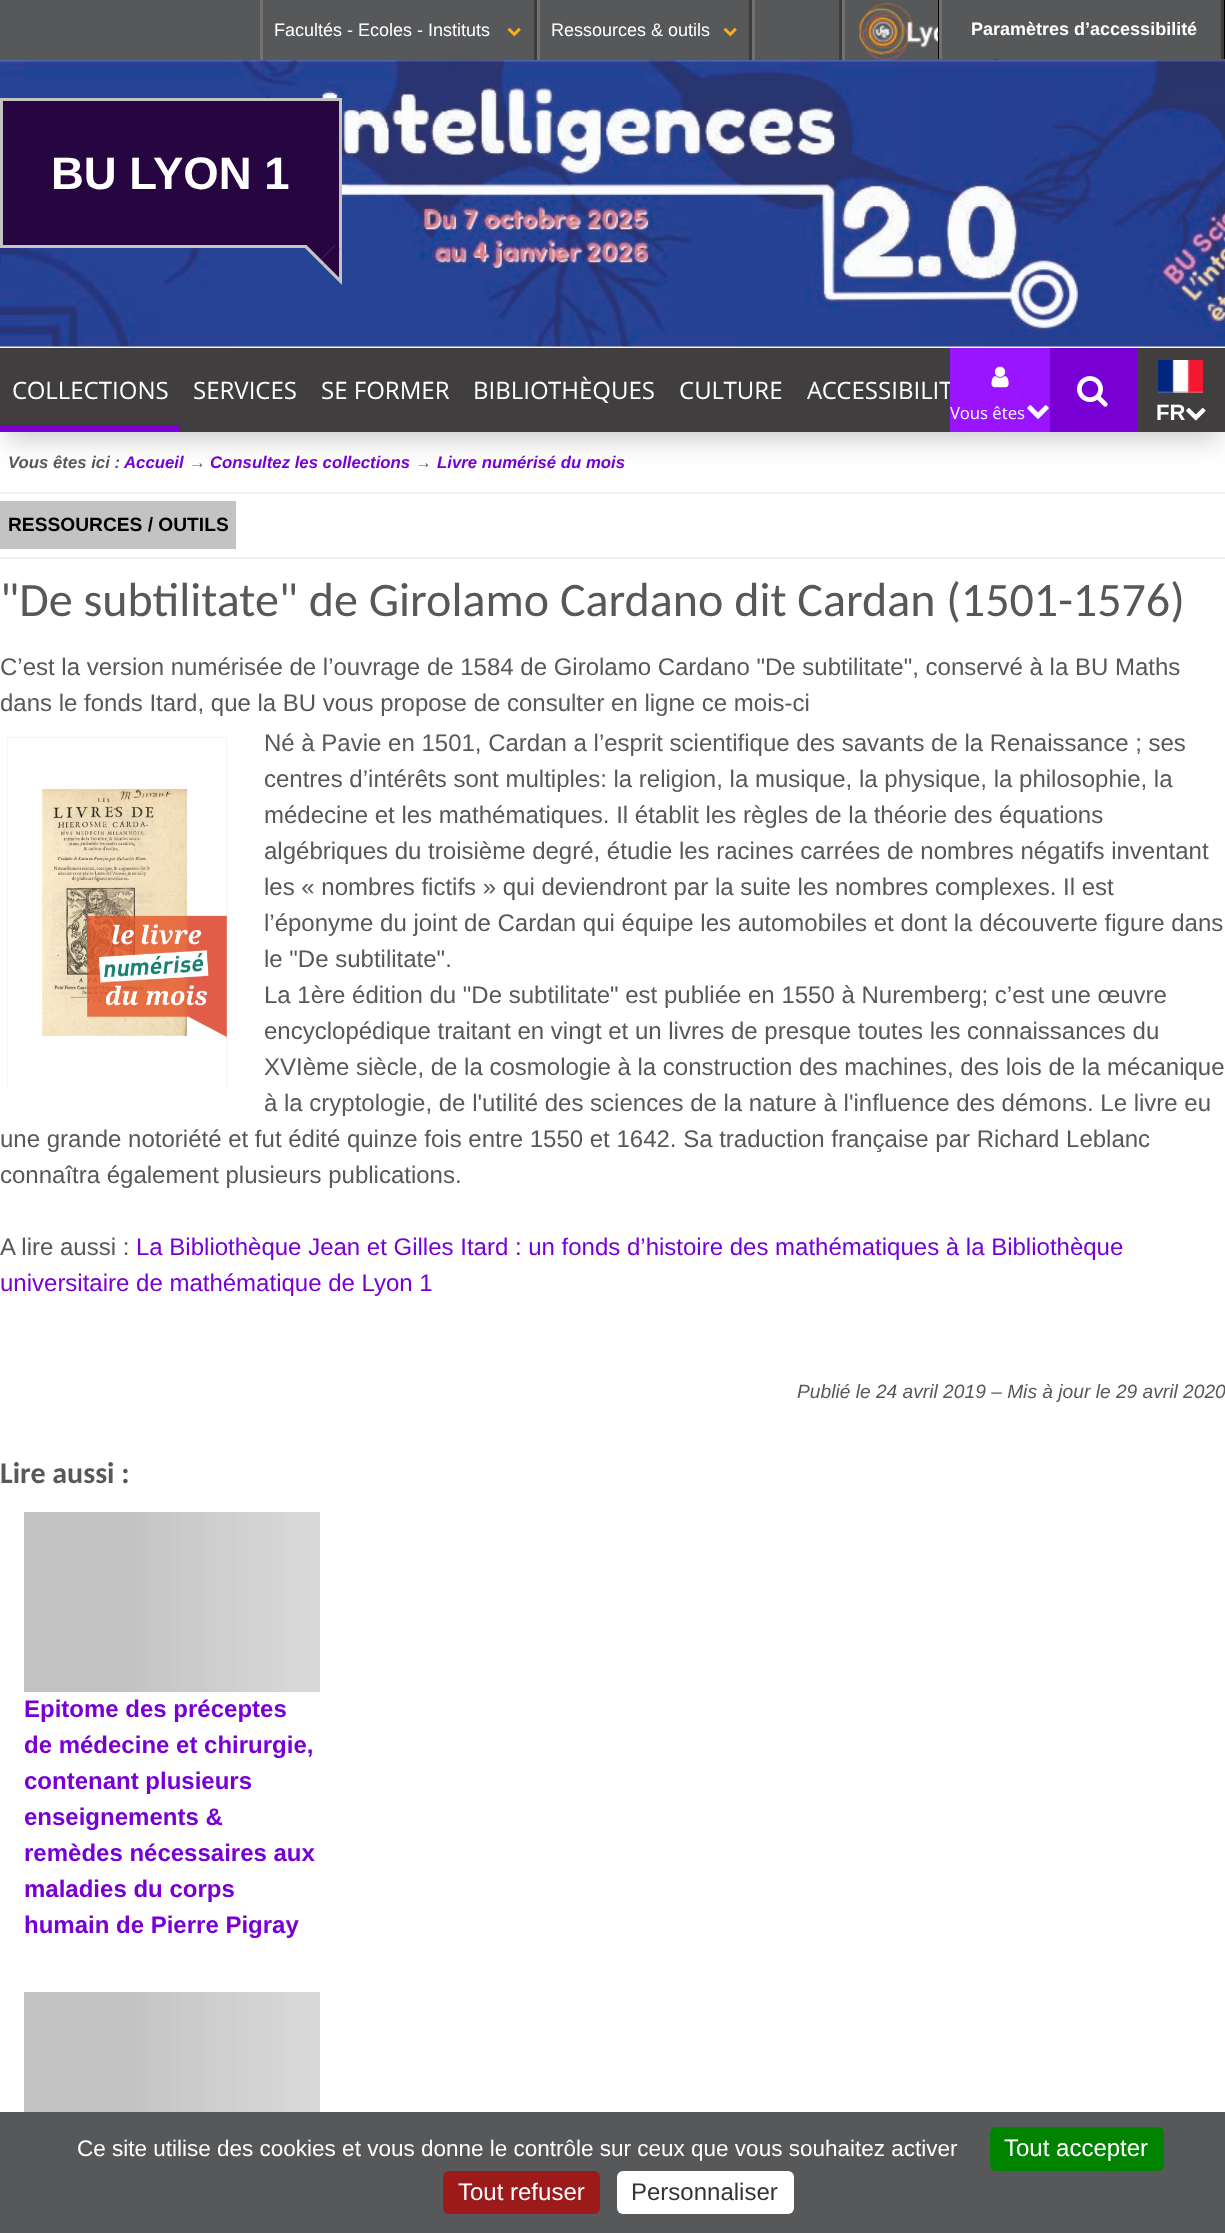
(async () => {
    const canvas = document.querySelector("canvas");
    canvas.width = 1225;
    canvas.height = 2233;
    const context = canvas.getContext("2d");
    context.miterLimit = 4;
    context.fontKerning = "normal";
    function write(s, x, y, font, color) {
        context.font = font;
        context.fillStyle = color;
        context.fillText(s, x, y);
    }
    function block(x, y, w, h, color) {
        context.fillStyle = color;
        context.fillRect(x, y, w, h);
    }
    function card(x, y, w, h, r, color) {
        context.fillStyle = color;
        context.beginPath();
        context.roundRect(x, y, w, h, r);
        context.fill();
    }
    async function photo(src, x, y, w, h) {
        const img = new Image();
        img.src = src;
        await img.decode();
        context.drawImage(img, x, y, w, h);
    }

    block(0, 0, 1225, 2233, "rgb(255, 255, 255)");
    block(0, 0, 1225, 60, "rgb(87, 88, 90)");
    block(1224, 0, 1, 59, "rgb(0, 0, 0)");
    block(938, 0, 1, 59, "rgb(0, 0, 0)");
    block(1221, 0, 3, 59, "rgb(62, 61, 59)");
    block(939, 0, 3, 59, "rgb(114, 112, 113)");
    write("Paramètres d’accessibilité", 971, 35, "bold 18px Liberation Sans", "rgb(255, 255, 255)");
    block(534, 0, 3, 60, "rgb(62, 61, 59)");
    block(260, 0, 3, 60, "rgb(114, 112, 113)");
    write("Facultés - Ecoles - Instituts", 274, 36, "18px Liberation Sans", "rgb(255, 255, 255)");
    await photo("media/1.png", 507, 28, 14, 9);
    block(749, 0, 3, 60, "rgb(62, 61, 59)");
    block(537, 0, 3, 60, "rgb(114, 112, 113)");
    write("Ressources & outils", 551, 36, "18px Liberation Sans", "rgb(255, 255, 255)");
    await photo("media/1.png", 723, 28, 14, 9);
    block(839, 0, 3, 60, "rgb(62, 61, 59)");
    block(752, 0, 3, 60, "rgb(114, 112, 113)");
    block(995, 59, 3, 1, "rgb(62, 61, 59)");
    block(842, 0, 3, 60, "rgb(114, 112, 113)");
    await photo("media/2.png", 859, 2, 79, 58);
    context.fillStyle = "rgb(199, 199, 199)";
    context.filter = "blur(14px)";
    context.beginPath();
    context.rect(6, 366, 1214, 72);
    context.fill();
    context.filter = "none";
    await photo("media/3.png", 0, 60, 1225, 288);
    context.fillStyle = "rgb(39, 5, 64)";
    context.beginPath();
    context.rect(1.5, 99.5, 339, 147);
    context.fill();
    context.strokeStyle = "rgb(195, 195, 195)";
    context.lineWidth = 3;
    context.stroke();
    write("BU LYON 1", 51, 189, "bold 45.5px Liberation Sans", "rgb(255, 255, 255)");
    context.fillStyle = "rgb(195, 195, 195)";
    context.beginPath();
    context.moveTo(303, 246);
    context.lineTo(342, 246);
    context.lineTo(322.5, 265.5);
    context.closePath();
    context.fill();
    context.beginPath();
    context.moveTo(342, 246);
    context.lineTo(342, 285);
    context.lineTo(322.5, 265.5);
    context.closePath();
    context.fill();
    context.fillStyle = "rgb(39, 5, 64)";
    context.beginPath();
    context.moveTo(303, 241.5);
    context.lineTo(339, 241.5);
    context.lineTo(321, 259.5);
    context.closePath();
    context.fill();
    context.beginPath();
    context.moveTo(339, 241.5);
    context.lineTo(339, 277.5);
    context.lineTo(321, 259.5);
    context.closePath();
    context.fill();
    block(0, 348, 1225, 84, "rgb(64, 62, 63)");
    block(0, 425, 180, 7, "rgb(121, 0, 213)");
    write("COLLECTIONS", 12, 399, "24px Open Sans", "rgb(255, 255, 255)");
    write("SERVICES", 193, 399, "24px Open Sans", "rgb(255, 255, 255)");
    write("SE FORMER", 321, 399, "24px Open Sans", "rgb(255, 255, 255)");
    write("BIBLIOTHÈQUES", 473, 399, "24px Open Sans", "rgb(255, 255, 255)");
    write("CULTURE", 679, 399, "24px Open Sans", "rgb(255, 255, 255)");
    write("ACCESSIBILIT", 807, 399, "24px Open Sans", "rgb(255, 255, 255)");
    block(1050, 348, 87, 84, "rgb(121, 0, 213)");
    await photo("media/4.png", 1077, 376, 31, 31);
    block(950, 348, 100, 84, "rgb(155, 20, 255)");
    await photo("media/5.png", 991, 366, 18, 22);
    write("Vous êtes", 950, 419, "16.75px Open Sans", "rgb(255, 255, 255)");
    await photo("media/6.png", 1027, 405, 22, 14);
    await photo("media/7.png", 1158, 360, 45, 33);
    write("FR", 1156, 420, "bold 22px Liberation Sans", "rgb(255, 255, 255)");
    await photo("media/8.png", 1186, 408, 20, 13);
    write("Vous êtes ici :", 8, 468, "italic bold 16.75px Liberation Sans", "rgb(87, 88, 90)");
    write("Accueil", 124, 468, "italic bold 16.75px Liberation Sans", "rgb(121, 0, 213)");
    write("→", 189, 468, "italic bold 16.75px Liberation Sans", "rgb(87, 88, 90)");
    write("Consultez les collections", 210, 468, "italic bold 16.75px Liberation Sans", "rgb(121, 0, 213)");
    write("→", 415, 468, "italic bold 16.75px Liberation Sans", "rgb(87, 88, 90)");
    write("Livre numérisé du mois", 437, 468, "italic bold 16.75px Liberation Sans", "rgb(121, 0, 213)");
    block(0, 492, 1225, 2, "rgb(242, 242, 242)");
    block(0, 557, 1225, 2, "rgb(242, 242, 242)");
    block(0, 501, 236, 48, "rgb(195, 195, 195)");
    write("RESSOURCES / OUTILS", 8, 531, "bold 19.2px Liberation Sans", "rgb(0, 0, 0)");
    write("\"De subtilitate\" de Girolamo Cardano dit Cardan (1501-1576)", 0, 616, "48px Carlito", "rgb(87, 88, 90)");
    write("C’est la version numérisée de l’ouvrage de 1584 de Girolamo Cardano \"De subtilitate\", conservé à la BU Maths", 0, 675, "24px Liberation Sans", "rgb(87, 88, 90)");
    write("dans le fonds Itard, que la BU vous propose de consulter en ligne ce mois-ci", 0, 711, "24px Liberation Sans", "rgb(87, 88, 90)");
    await photo("media/9.png", 7, 737, 221, 352);
    write("Né à Pavie en 1501, Cardan a l’esprit scientifique des savants de la Renaissance ; ses", 264, 751, "24px Liberation Sans", "rgb(87, 88, 90)");
    write("centres d’intérêts sont multiples: la religion, la musique, la physique, la philosophie, la", 264, 787, "24px Liberation Sans", "rgb(87, 88, 90)");
    write("médecine et les mathématiques. Il établit les règles de la théorie des équations", 264, 823, "24px Liberation Sans", "rgb(87, 88, 90)");
    write("algébriques du troisième degré, étudie les racines carrées de nombres négatifs inventant", 264, 859, "24px Liberation Sans", "rgb(87, 88, 90)");
    write("les « nombres fictifs » qui deviendront par la suite les nombres complexes. Il est", 264, 895, "24px Liberation Sans", "rgb(87, 88, 90)");
    write("l’éponyme du joint de Cardan qui équipe les automobiles et dont la découverte figure dans", 264, 931, "24px Liberation Sans", "rgb(87, 88, 90)");
    write("le \"De subtilitate\".", 264, 967, "24px Liberation Sans", "rgb(87, 88, 90)");
    write("La 1ère édition du \"De subtilitate\" est publiée en 1550 à Nuremberg; c’est une œuvre", 264, 1003, "24px Liberation Sans", "rgb(87, 88, 90)");
    write("encyclopédique traitant en vingt et un livres de presque toutes les connaissances du", 264, 1039, "24px Liberation Sans", "rgb(87, 88, 90)");
    write("XVIème siècle, de la cosmologie à la construction des machines, des lois de la mécanique", 264, 1075, "24px Liberation Sans", "rgb(87, 88, 90)");
    write("à la cryptologie, de l'utilité des sciences de la nature à l'influence des démons. Le livre eu", 264, 1111, "24px Liberation Sans", "rgb(87, 88, 90)");
    write("une grande notoriété et fut édité quinze fois entre 1550 et 1642. Sa traduction française par Richard Leblanc", 0, 1147, "24px Liberation Sans", "rgb(87, 88, 90)");
    write("connaîtra également plusieurs publications.", 0, 1183, "24px Liberation Sans", "rgb(87, 88, 90)");
    write("A lire aussi :", 0, 1255, "24px Liberation Sans", "rgb(87, 88, 90)");
    write("La Bibliothèque Jean et Gilles Itard : un fonds d’histoire des mathématiques à la Bibliothèque", 136, 1255, "24px Liberation Sans", "rgb(121, 0, 213)");
    write("universitaire de mathématique de Lyon 1", 0, 1291, "24px Liberation Sans", "rgb(121, 0, 213)");
    write("Publié le 24 avril 2019 – Mis à jour le 29 avril 2020", 797, 1398, "italic 19.2px Liberation Sans", "rgb(87, 88, 90)");
    write("Lire aussi :", 0, 1483, "bold 30px Carlito", "rgb(87, 88, 90)");
    await photo("media/10.png", 24, 1512, 296, 180);
    write("Epitome des préceptes", 24, 1717, "bold 24px Liberation Sans", "rgb(121, 0, 213)");
    write("de médecine et chirurgie,", 24, 1753, "bold 24px Liberation Sans", "rgb(121, 0, 213)");
    write("contenant plusieurs", 24, 1789, "bold 24px Liberation Sans", "rgb(121, 0, 213)");
    write("enseignements &", 24, 1825, "bold 24px Liberation Sans", "rgb(121, 0, 213)");
    write("remèdes nécessaires aux", 24, 1861, "bold 24px Liberation Sans", "rgb(121, 0, 213)");
    write("maladies du corps", 24, 1897, "bold 24px Liberation Sans", "rgb(121, 0, 213)");
    write("humain de Pierre Pigray", 24, 1933, "bold 24px Liberation Sans", "rgb(121, 0, 213)");
    await photo("media/11.png", 24, 1992, 296, 120);
    block(0, 2112, 1225, 121, "rgb(87, 88, 90)");
    write("Ce site utilise des cookies et vous donne le contrôle sur ceux que vous souhaitez activer", 77, 2156, "22.5px Liberation Sans", "rgb(255, 255, 255)");
    card(990, 2127, 174, 44, 6, "rgb(0, 131, 0)");
    write("Tout accepter", 1004, 2156, "24px Liberation Sans", "rgb(255, 255, 255)");
    card(443, 2171, 157, 43, 6, "rgb(156, 26, 26)");
    write("Tout refuser", 458, 2200, "24px Liberation Sans", "rgb(255, 255, 255)");
    card(617, 2171, 177, 43, 6, "rgb(255, 255, 255)");
    write("Personnaliser", 631, 2200, "24px Liberation Sans", "rgb(51, 51, 51)");
})();
